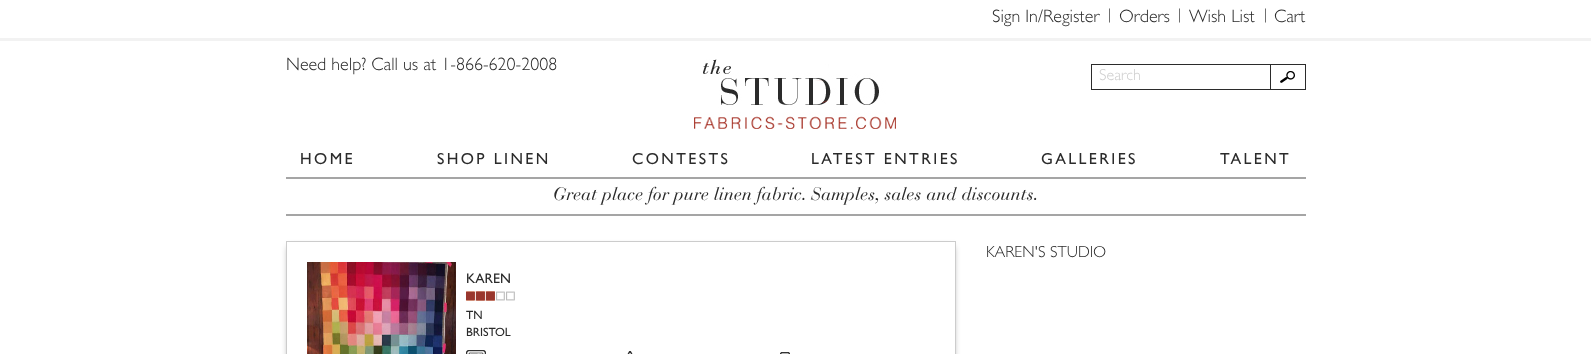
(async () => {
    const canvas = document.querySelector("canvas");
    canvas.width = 1591;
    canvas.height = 354;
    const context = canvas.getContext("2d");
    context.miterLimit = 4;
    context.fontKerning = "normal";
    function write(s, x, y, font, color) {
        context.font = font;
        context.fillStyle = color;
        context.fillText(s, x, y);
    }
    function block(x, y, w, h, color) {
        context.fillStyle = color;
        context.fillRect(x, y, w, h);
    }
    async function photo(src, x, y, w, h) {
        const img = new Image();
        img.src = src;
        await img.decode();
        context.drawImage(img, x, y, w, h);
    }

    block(0, 0, 1591, 354, "rgb(255, 255, 255)");
    block(0, 38, 1591, 3, "rgb(242, 242, 242)");
    write("Sign In/Register", 992, 22, "300 18px Gill Sans", "rgb(43, 43, 43)");
    write("|", 1108, 19, "300 14px Gill Sans", "rgb(43, 43, 43)");
    write("Orders", 1119, 22, "300 18px Gill Sans", "rgb(43, 43, 43)");
    write("|", 1178, 19, "300 14px Gill Sans", "rgb(43, 43, 43)");
    write("Wish List", 1189, 22, "300 18px Gill Sans", "rgb(43, 43, 43)");
    write("|", 1264, 19, "300 14px Gill Sans", "rgb(43, 43, 43)");
    write("Cart", 1274, 22, "300 18px Gill Sans", "rgb(43, 43, 43)");
    write("Need help? Call us at 1-866-620-2008", 286, 70, "300 18px Gill Sans", "rgb(43, 43, 43)");
    await photo("media/1.png", 694, 59, 202, 70);
    context.strokeStyle = "rgb(43, 43, 43)";
    context.strokeRect(1091.5, 64.5, 179, 25);
    write("Search", 1099, 80, "300 16px Gill Sans", "rgb(206, 206, 206)");
    await photo("media/2.png", 1280, 71, 15, 12);
    block(1271, 64, 35, 1, "rgb(43, 43, 43)");
    block(1305, 64, 1, 26, "rgb(43, 43, 43)");
    block(1271, 89, 35, 1, "rgb(43, 43, 43)");
    context.letterSpacing = "2.4px";
    write("HOME", 300, 164, "500 16px Gill Sans", "rgb(43, 43, 43)");
    write("SHOP LINEN", 437, 164, "500 16px Gill Sans", "rgb(43, 43, 43)");
    write("CONTESTS", 632, 164, "500 16px Gill Sans", "rgb(43, 43, 43)");
    write("LATEST ENTRIES", 811, 164, "500 16px Gill Sans", "rgb(43, 43, 43)");
    write("GALLERIES", 1041, 164, "500 16px Gill Sans", "rgb(43, 43, 43)");
    write("TALENT", 1220, 164, "500 16px Gill Sans", "rgb(43, 43, 43)");
    block(286, 177, 1020, 2, "rgb(165, 165, 165)");
    block(286, 214, 1020, 2, "rgb(165, 165, 165)");
    context.letterSpacing = "0px";
    write("Great place for pure linen fabric. Samples, sales and discounts.", 553, 200, "italic 18px 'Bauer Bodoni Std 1'", "rgb(43, 43, 43)");
    write("KAREN'S STUDIO", 986, 257, "300 16px Gill Sans", "rgb(43, 43, 43)");
    context.save();
    context.beginPath();
    context.moveTo(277, 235);
    context.lineTo(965, 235);
    context.lineTo(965, 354);
    context.lineTo(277, 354);
    context.closePath();
    context.moveTo(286, 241);
    context.lineTo(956, 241);
    context.lineTo(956, 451);
    context.lineTo(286, 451);
    context.closePath();
    context.clip("evenodd");
    context.fillStyle = "rgba(0, 0, 0, 0.5)";
    context.filter = "blur(3.5px)";
    context.beginPath();
    context.rect(289, 247, 664, 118);
    context.fill();
    context.filter = "none";
    context.restore();
    context.strokeStyle = "rgb(204, 204, 204)";
    context.strokeRect(286.5, 241.5, 669, 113);
    await photo("media/3.png", 307, 262, 149, 92);
    write("KAREN", 466, 283, "500 14px Gill Sans", "rgb(43, 43, 43)");
    await photo("media/4.png", 466, 291, 49, 10);
    write("TN", 466, 319, "500 12px Gill Sans", "rgb(43, 43, 43)");
    write("BRISTOL", 466, 336, "500 12px Gill Sans", "rgb(43, 43, 43)");
    await photo("media/5.png", 466, 350, 20, 4);
    await photo("media/6.png", 627, 351, 6, 3);
    await photo("media/7.png", 780, 352, 10, 2);
})();
